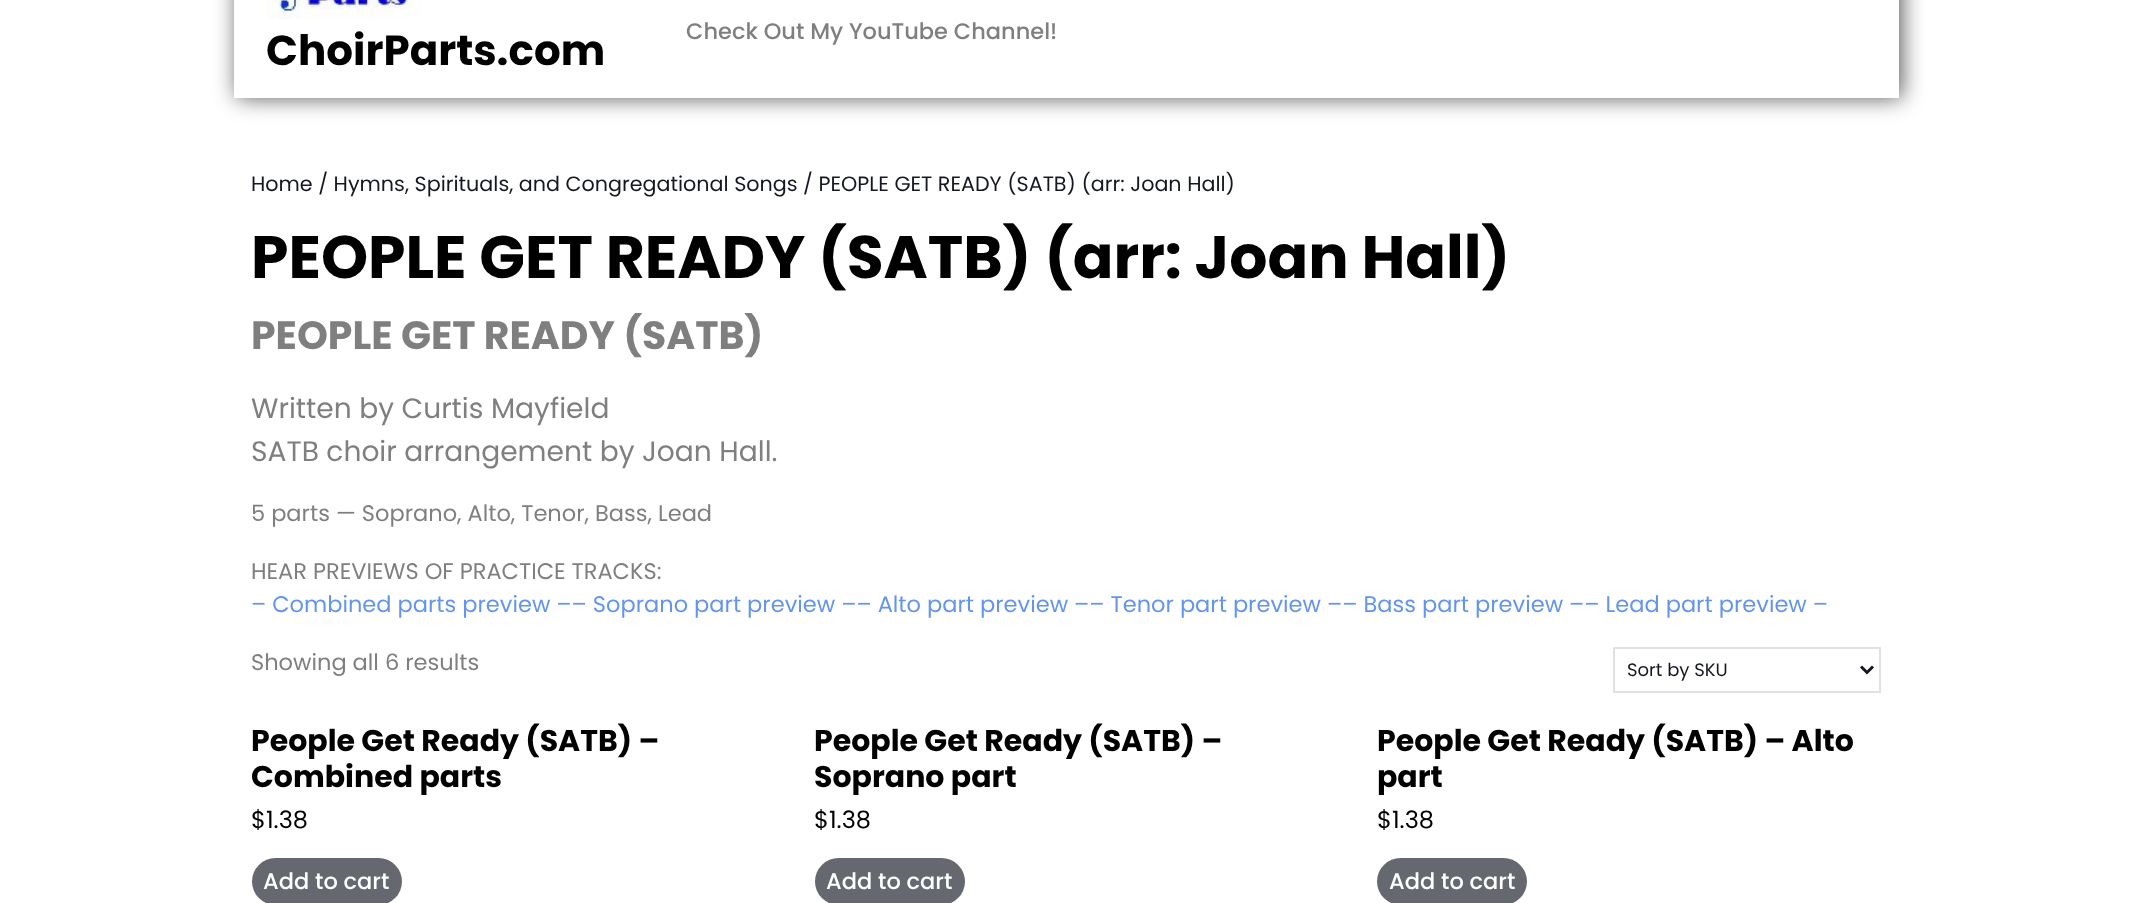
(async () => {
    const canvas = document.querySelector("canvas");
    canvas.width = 2131;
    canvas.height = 903;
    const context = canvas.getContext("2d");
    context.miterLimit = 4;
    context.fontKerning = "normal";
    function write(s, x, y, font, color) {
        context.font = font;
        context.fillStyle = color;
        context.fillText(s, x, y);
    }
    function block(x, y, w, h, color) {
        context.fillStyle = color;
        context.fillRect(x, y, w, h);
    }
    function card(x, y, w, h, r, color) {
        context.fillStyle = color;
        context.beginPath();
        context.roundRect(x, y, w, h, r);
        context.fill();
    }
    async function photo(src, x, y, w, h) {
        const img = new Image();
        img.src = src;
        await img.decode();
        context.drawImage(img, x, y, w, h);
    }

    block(0, 0, 2131, 903, "rgb(255, 255, 255)");
    context.save();
    context.beginPath();
    context.moveTo(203, 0);
    context.lineTo(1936, 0);
    context.lineTo(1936, 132);
    context.lineTo(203, 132);
    context.closePath();
    context.moveTo(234, -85);
    context.lineTo(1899, -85);
    context.lineTo(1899, 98);
    context.lineTo(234, 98);
    context.closePath();
    context.clip("evenodd");
    context.fillStyle = "rgba(0, 0, 0, 0.65)";
    context.filter = "blur(11px)";
    context.beginPath();
    context.rect(237, -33, 1665, 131);
    context.fill();
    context.filter = "none";
    context.restore();
    await photo("media/1.png", 267, 0, 154, 19);
    write("ChoirParts.com", 266, 65, "bold 42px Poppins", "rgb(0, 0, 0)");
    write("Check Out My YouTube Channel!", 686, 39, "500 22.5px Poppins", "rgb(127, 127, 127)");
    write("Home / Hymns, Spirituals, and Congregational Songs / PEOPLE GET READY (SATB) (arr: Joan Hall)", 251, 191, "20.7px Poppins", "rgb(21, 24, 33)");
    write("PEOPLE GET READY (SATB) (arr: Joan Hall)", 251, 278, "bold 60px Poppins", "rgb(0, 0, 0)");
    write("PEOPLE GET READY (SATB)", 251, 349, "bold 39.4px Poppins", "rgb(127, 127, 127)");
    write("Written by Curtis Mayfield", 251, 418, "28.1px Poppins", "rgb(127, 127, 127)");
    write("SATB choir arrangement by Joan Hall.", 251, 461, "28.1px Poppins", "rgb(127, 127, 127)");
    write("5 parts — Soprano, Alto, Tenor, Bass, Lead", 251, 521, "22.5px Poppins", "rgb(127, 127, 127)");
    write("HEAR PREVIEWS OF PRACTICE TRACKS:", 251, 579, "22.5px Poppins", "rgb(127, 127, 127)");
    write("– Combined parts preview –– Soprano part preview –– Alto part preview –– Tenor part preview –– Bass part preview –– Lead part preview –", 251, 612, "22.5px Poppins", "rgb(100, 149, 237)");
    write("Showing all 6 results", 251, 670, "22.5px Poppins", "rgb(127, 127, 127)");
    context.strokeStyle = "rgb(225, 225, 225)";
    context.lineWidth = 2;
    context.strokeRect(1614, 648, 266, 44);
    context.beginPath();
    context.moveTo(1861, 666.5);
    context.lineTo(1867, 672.5);
    context.lineTo(1873, 666.5);
    context.strokeStyle = "rgb(21, 24, 33)";
    context.lineWidth = 3;
    context.stroke();
    context.save();
    context.beginPath();
    context.rect(1628, 656, 220, 28);
    context.clip();
    write("Sort by SKU", 1627, 676, "18px Poppins", "rgb(21, 24, 33)");
    context.restore();
    write("People Get Ready (SATB) –", 251, 751, "bold 30px Poppins", "rgb(0, 0, 0)");
    write("Combined parts", 251, 787, "bold 30px Poppins", "rgb(0, 0, 0)");
    write("$1.38", 251, 828, "24px Poppins", "rgb(0, 0, 0)");
    card(252, 858, 150, 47, 23.5, "rgb(102, 104, 112)");
    write("Add to cart", 263, 889, "500 22.5px Poppins", "rgb(255, 255, 255)");
    write("People Get Ready (SATB) –", 814, 751, "bold 30px Poppins", "rgb(0, 0, 0)");
    write("Soprano part", 814, 787, "bold 30px Poppins", "rgb(0, 0, 0)");
    write("$1.38", 814, 828, "24px Poppins", "rgb(0, 0, 0)");
    card(815, 858, 150, 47, 23.5, "rgb(102, 104, 112)");
    write("Add to cart", 826, 889, "500 22.5px Poppins", "rgb(255, 255, 255)");
    write("People Get Ready (SATB) – Alto", 1377, 751, "bold 30px Poppins", "rgb(0, 0, 0)");
    write("part", 1377, 787, "bold 30px Poppins", "rgb(0, 0, 0)");
    write("$1.38", 1377, 828, "24px Poppins", "rgb(0, 0, 0)");
    card(1377, 858, 150, 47, 23.5, "rgb(102, 104, 112)");
    write("Add to cart", 1389, 889, "500 22.5px Poppins", "rgb(255, 255, 255)");
})();
